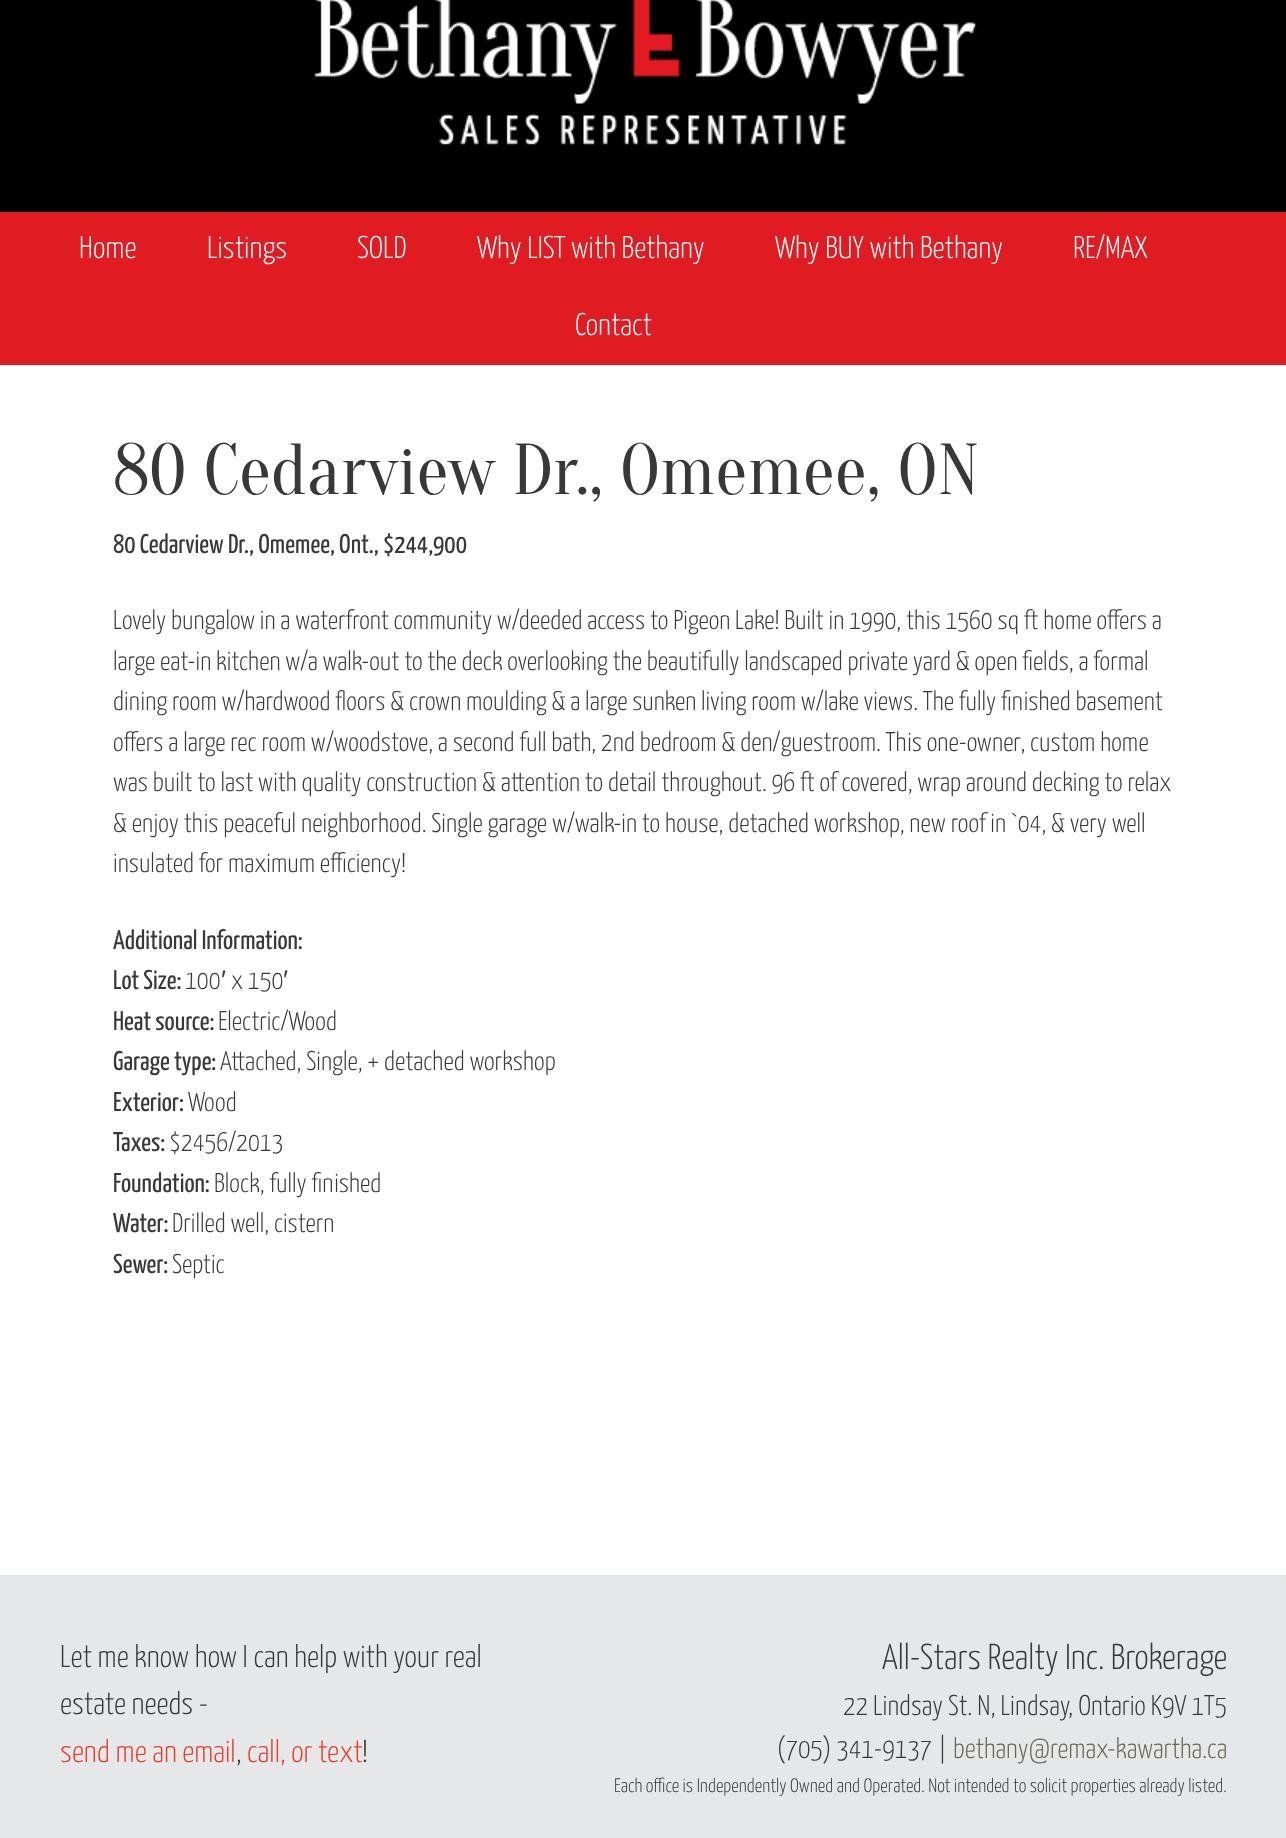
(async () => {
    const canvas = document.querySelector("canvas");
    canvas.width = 1286;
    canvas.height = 1838;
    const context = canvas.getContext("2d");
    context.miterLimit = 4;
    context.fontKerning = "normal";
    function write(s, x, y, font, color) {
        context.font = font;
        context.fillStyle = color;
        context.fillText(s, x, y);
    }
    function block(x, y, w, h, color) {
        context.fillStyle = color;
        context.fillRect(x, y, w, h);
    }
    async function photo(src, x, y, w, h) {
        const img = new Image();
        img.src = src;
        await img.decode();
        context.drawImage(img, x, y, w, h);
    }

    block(0, 0, 1286, 1838, "rgb(0, 0, 0)");
    await photo("media/1.png", 314, 0, 663, 145);
    block(0, 212, 1286, 153, "rgb(224, 27, 34)");
    write("Home", 79, 258, "300 31.5px Yanone Kaffeesatz", "rgb(255, 255, 255)");
    write("Listings", 207, 258, "300 31.5px Yanone Kaffeesatz", "rgb(255, 255, 255)");
    write("SOLD", 357, 258, "300 31.5px Yanone Kaffeesatz", "rgb(255, 255, 255)");
    write("Why LIST with Bethany", 477, 258, "300 31.5px Yanone Kaffeesatz", "rgb(255, 255, 255)");
    write("Why BUY with Bethany", 775, 258, "300 31.5px Yanone Kaffeesatz", "rgb(255, 255, 255)");
    write("RE/MAX", 1073, 258, "300 31.5px Yanone Kaffeesatz", "rgb(255, 255, 255)");
    write("Contact", 575, 335, "300 31.5px Yanone Kaffeesatz", "rgb(255, 255, 255)");
    block(0, 365, 1286, 1210, "rgb(255, 255, 255)");
    write("80 Cedarview Dr., Omemee, ON", 113, 494, "72px Oranienbaum", "rgb(56, 56, 56)");
    write("80 Cedarview Dr., Omemee, Ont., $244,900", 113, 553, "27px Yanone Kaffeesatz", "rgb(56, 56, 56)");
    write("Lovely bungalow in a waterfront community w/deeded access to Pigeon Lake! Built in 1990, this 1560 sq ft home offers a", 113, 629, "300 27px Yanone Kaffeesatz", "rgb(56, 56, 56)");
    write("large eat-in kitchen w/a walk-out to the deck overlooking the beautifully landscaped private yard & open fields, a formal", 113, 670, "300 27px Yanone Kaffeesatz", "rgb(56, 56, 56)");
    write("dining room w/hardwood floors & crown moulding & a large sunken living room w/lake views. The fully finished basement", 113, 710, "300 27px Yanone Kaffeesatz", "rgb(56, 56, 56)");
    write("offers a large rec room w/woodstove, a second full bath, 2nd bedroom & den/guestroom. This one-owner, custom home", 113, 751, "300 27px Yanone Kaffeesatz", "rgb(56, 56, 56)");
    write("was built to last with quality construction & attention to detail throughout. 96 ft of covered, wrap around decking to relax", 113, 791, "300 27px Yanone Kaffeesatz", "rgb(56, 56, 56)");
    write("& enjoy this peaceful neighborhood. Single garage w/walk-in to house, detached workshop, new roof in `04, & very well", 113, 832, "300 27px Yanone Kaffeesatz", "rgb(56, 56, 56)");
    write("insulated for maximum efficiency!", 113, 872, "300 27px Yanone Kaffeesatz", "rgb(56, 56, 56)");
    write("Additional Information:", 113, 949, "27px Yanone Kaffeesatz", "rgb(56, 56, 56)");
    write("Lot Size:", 113, 989, "27px Yanone Kaffeesatz", "rgb(56, 56, 56)");
    write("100", 185, 989, "300 27px Yanone Kaffeesatz", "rgb(56, 56, 56)");
    write("′", 221, 989, "27px Liberation Sans", "rgb(56, 56, 56)");
    write("x 150", 231, 989, "300 27px Yanone Kaffeesatz", "rgb(56, 56, 56)");
    write("′", 283, 989, "27px Liberation Sans", "rgb(56, 56, 56)");
    write("Heat source:", 113, 1030, "27px Yanone Kaffeesatz", "rgb(56, 56, 56)");
    write("Electric/Wood", 218, 1030, "300 27px Yanone Kaffeesatz", "rgb(56, 56, 56)");
    write("Garage type:", 113, 1070, "27px Yanone Kaffeesatz", "rgb(56, 56, 56)");
    write("Attached, Single, + detached workshop", 220, 1070, "300 27px Yanone Kaffeesatz", "rgb(56, 56, 56)");
    write("Exterior:", 113, 1111, "27px Yanone Kaffeesatz", "rgb(56, 56, 56)");
    write("Wood", 188, 1111, "300 27px Yanone Kaffeesatz", "rgb(56, 56, 56)");
    write("Taxes:", 113, 1151, "27px Yanone Kaffeesatz", "rgb(56, 56, 56)");
    write("$2456/2013", 169, 1151, "300 27px Yanone Kaffeesatz", "rgb(56, 56, 56)");
    write("Foundation:", 113, 1192, "27px Yanone Kaffeesatz", "rgb(56, 56, 56)");
    write("Block, fully finished", 214, 1192, "300 27px Yanone Kaffeesatz", "rgb(56, 56, 56)");
    write("Water:", 113, 1232, "27px Yanone Kaffeesatz", "rgb(56, 56, 56)");
    write("Drilled well, cistern", 172, 1232, "300 27px Yanone Kaffeesatz", "rgb(56, 56, 56)");
    write("Sewer:", 113, 1273, "27px Yanone Kaffeesatz", "rgb(56, 56, 56)");
    write("Septic", 172, 1273, "300 27px Yanone Kaffeesatz", "rgb(56, 56, 56)");
    block(0, 1575, 1286, 263, "rgb(230, 231, 232)");
    write("Let me know how I can help with your real", 60, 1667, "300 31.5px Yanone Kaffeesatz", "rgb(56, 56, 56)");
    write("estate needs -", 60, 1714, "300 31.5px Yanone Kaffeesatz", "rgb(56, 56, 56)");
    write("send me an email", 60, 1762, "300 31.5px Yanone Kaffeesatz", "rgb(230, 64, 42)");
    write(",", 236, 1762, "300 31.5px Yanone Kaffeesatz", "rgb(56, 56, 56)");
    write("call, or text", 247, 1762, "300 31.5px Yanone Kaffeesatz", "rgb(230, 64, 42)");
    write("!", 362, 1762, "300 31.5px Yanone Kaffeesatz", "rgb(56, 56, 56)");
    write("All-Stars Realty Inc. Brokerage", 882, 1669, "300 36px Yanone Kaffeesatz", "rgb(56, 56, 56)");
    write("22 Lindsay St. N, Lindsay, Ontario K9V 1T5", 843, 1715, "300 28.5px Yanone Kaffeesatz", "rgb(56, 56, 56)");
    write("(705) 341-9137 |", 777, 1758, "300 28.5px Yanone Kaffeesatz", "rgb(56, 56, 56)");
    write("bethany@remax-kawartha.ca", 953, 1758, "300 28.5px Yanone Kaffeesatz", "rgb(104, 103, 88)");
    write("Each office is Independently Owned and Operated. Not intended to solicit properties already listed.", 614, 1792, "300 19.5px Yanone Kaffeesatz", "rgb(56, 56, 56)");
})();
